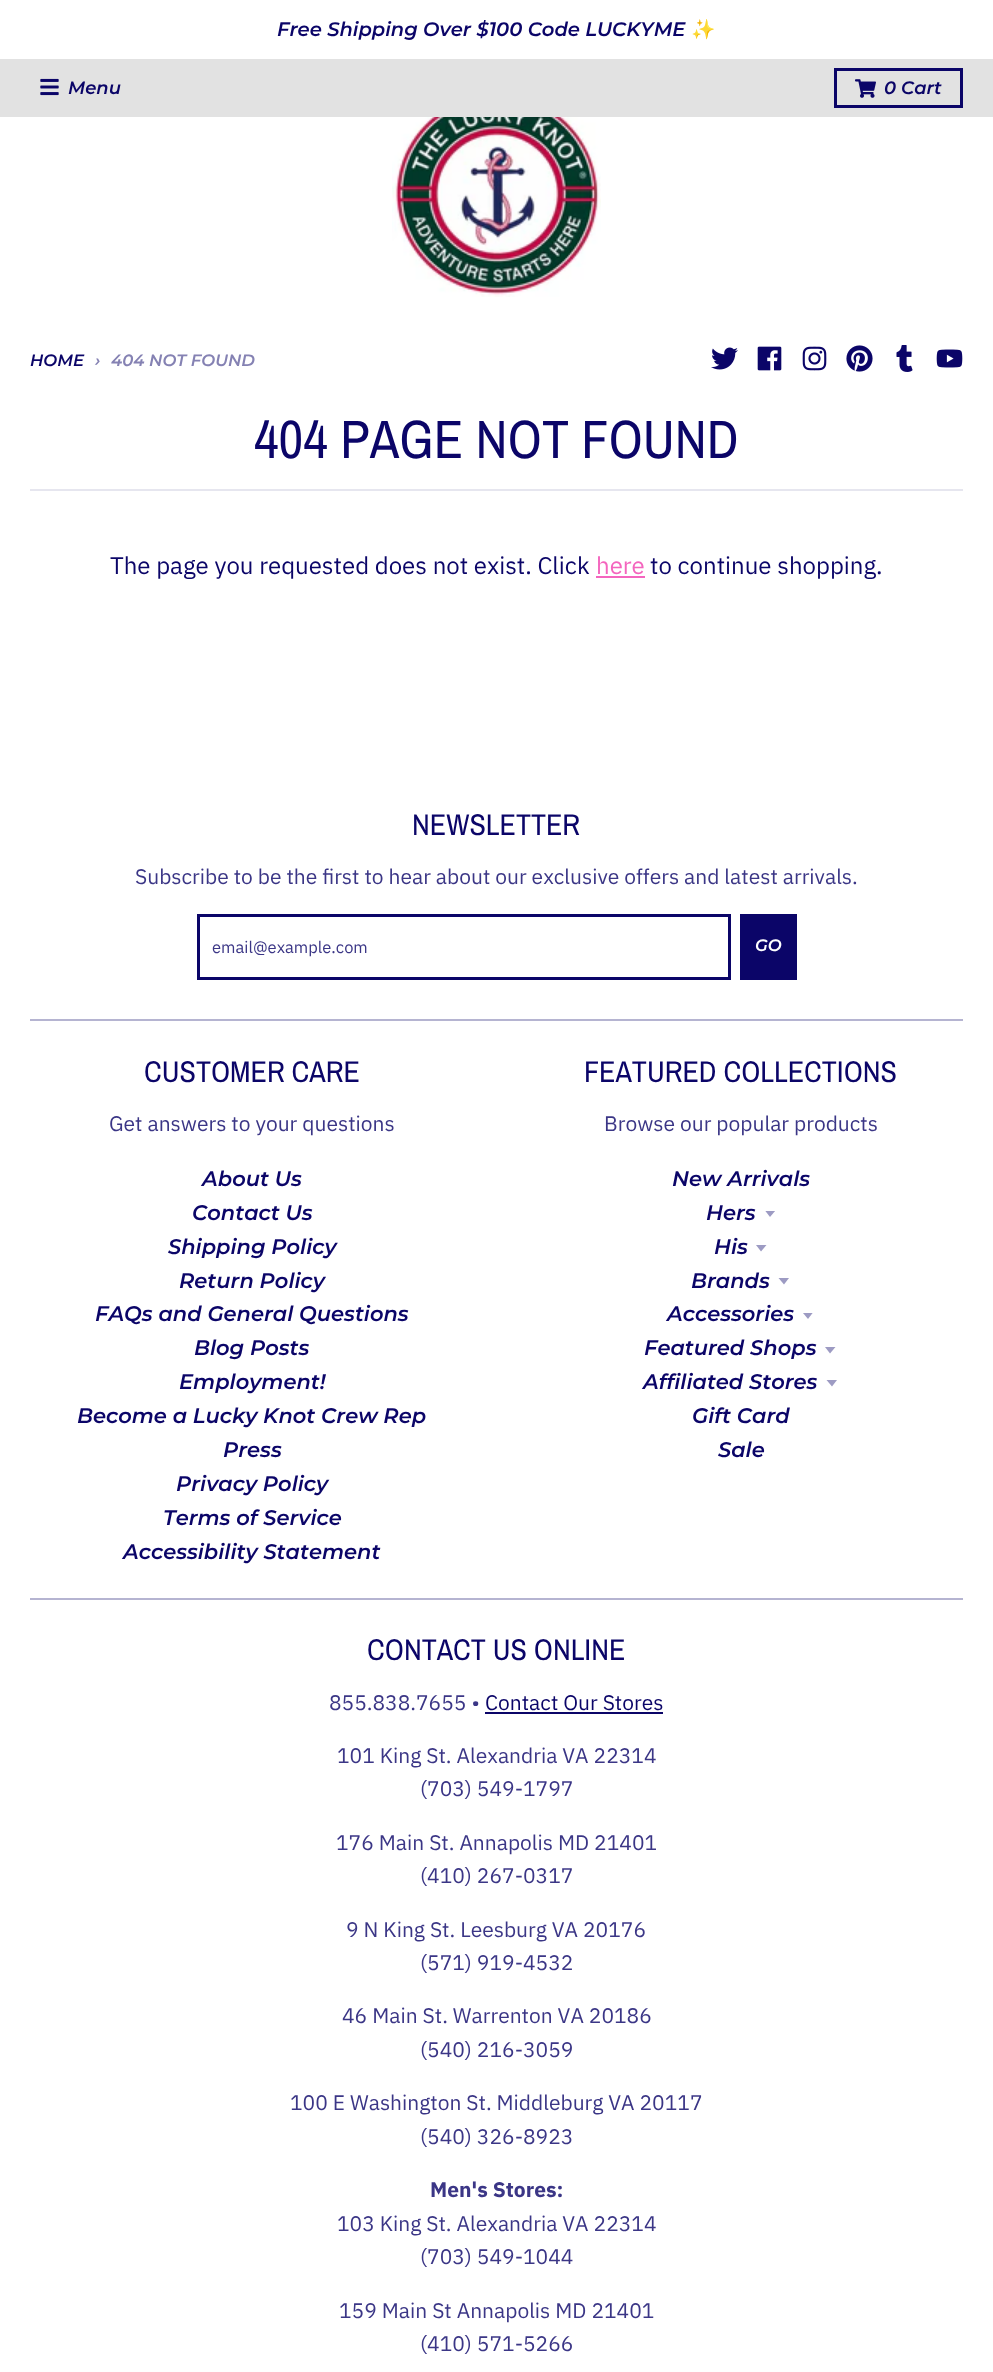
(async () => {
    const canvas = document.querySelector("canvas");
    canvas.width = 993;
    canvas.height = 2372;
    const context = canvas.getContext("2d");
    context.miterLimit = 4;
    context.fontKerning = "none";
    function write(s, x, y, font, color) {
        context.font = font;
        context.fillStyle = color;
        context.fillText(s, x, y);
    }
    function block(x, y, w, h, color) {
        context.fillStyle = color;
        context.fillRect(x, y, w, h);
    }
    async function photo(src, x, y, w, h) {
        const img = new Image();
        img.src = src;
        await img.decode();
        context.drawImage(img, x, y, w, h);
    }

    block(0, 0, 993, 2372, "rgb(255, 255, 255)");
    write("Free Shipping Over $100 Code LUCKYME", 277, 36, "italic 600 19.5px Montserrat", "rgb(11, 5, 104)");
    write("✨", 691, 36, "19.5px Noto Color Emoji", "rgb(11, 5, 104)");
    block(0, 59, 993, 58, "rgb(226, 226, 226)");
    await photo("media/1.png", 40, 78, 19, 18);
    write("Menu", 68, 94, "italic 600 18px Montserrat", "rgb(11, 5, 104)");
    context.strokeStyle = "rgb(11, 5, 104)";
    context.lineWidth = 3;
    context.strokeRect(835.5, 69.5, 126, 37);
    await photo("media/2.png", 855, 79, 21, 19);
    write("0 Cart", 884, 94, "italic 600 18px Montserrat", "rgb(11, 5, 104)");
    await photo("media/3.png", 392, 117, 209, 180);
    write("HOME", 30, 366, "italic 600 16.5px Montserrat", "rgb(11, 5, 104)");
    write("›", 95, 366, "italic 600 16.5px Montserrat", "rgb(133, 130, 179)");
    write("404 NOT FOUND", 111, 366, "italic 600 16.5px Montserrat", "rgb(133, 130, 179)");
    await photo("media/4.png", 711, 347, 27, 23);
    await photo("media/5.png", 757, 346, 25, 25);
    await photo("media/6.png", 802, 346, 25, 25);
    await photo("media/7.png", 846, 345, 27, 27);
    await photo("media/8.png", 896, 345, 17, 27);
    await photo("media/9.png", 936, 349, 27, 19);
    block(30, 489, 933, 2, "rgb(230, 230, 239)");
    write("404 PAGE NOT FOUND", 254, 458, "54px Archivo Narrow", "rgb(11, 5, 104)");
    write("The page you requested does not exist. Click", 110, 574, "24px IBM Plex Sans", "rgb(11, 5, 104)");
    write("here", 596, 574, "24px IBM Plex Sans", "rgb(244, 101, 190)");
    block(596, 576, 49, 2, "rgb(244, 101, 190)");
    write("to continue shopping.", 650, 574, "24px IBM Plex Sans", "rgb(11, 5, 104)");
    write("NEWSLETTER", 412, 835, "30px Archivo Narrow", "rgb(11, 5, 104)");
    write("Subscribe to be the first to hear about our exclusive offers and latest arrivals.", 135, 884, "21px IBM Plex Sans", "rgb(59, 54, 134)");
    block(30, 1019, 933, 2, "rgb(181, 180, 209)");
    context.strokeRect(198.5, 915.5, 531, 63);
    write("email@example.com", 212, 953, "16.5px IBM Plex Sans", "rgb(59, 54, 134)");
    block(740, 914, 57, 66, "rgb(11, 5, 104)");
    write("GO", 755, 951, "italic 600 16.5px Montserrat", "rgb(255, 255, 255)");
    write("CUSTOMER CARE", 144, 1082, "30px Archivo Narrow", "rgb(11, 5, 104)");
    write("Get answers to your questions", 109, 1131, "21px IBM Plex Sans", "rgb(59, 54, 134)");
    write("About Us", 202, 1186, "italic 600 21px Montserrat", "rgb(11, 5, 104)");
    write("Contact Us", 192, 1220, "italic 600 21px Montserrat", "rgb(11, 5, 104)");
    write("Shipping Policy", 168, 1254, "italic 600 21px Montserrat", "rgb(11, 5, 104)");
    write("Return Policy", 179, 1288, "italic 600 21px Montserrat", "rgb(11, 5, 104)");
    write("FAQs and General Questions", 95, 1321, "italic 600 21px Montserrat", "rgb(11, 5, 104)");
    write("Blog Posts", 194, 1355, "italic 600 21px Montserrat", "rgb(11, 5, 104)");
    write("Employment!", 179, 1389, "italic 600 21px Montserrat", "rgb(11, 5, 104)");
    write("Become a Lucky Knot Crew Rep", 77, 1423, "italic 600 21px Montserrat", "rgb(11, 5, 104)");
    write("Press", 223, 1457, "italic 600 21px Montserrat", "rgb(11, 5, 104)");
    write("Privacy Policy", 176, 1491, "italic 600 21px Montserrat", "rgb(11, 5, 104)");
    write("Terms of Service", 163, 1525, "italic 600 21px Montserrat", "rgb(11, 5, 104)");
    write("Accessibility Statement", 123, 1559, "italic 600 21px Montserrat", "rgb(11, 5, 104)");
    write("FEATURED COLLECTIONS", 584, 1082, "30px Archivo Narrow", "rgb(11, 5, 104)");
    write("Browse our popular products", 604, 1131, "21px IBM Plex Sans", "rgb(59, 54, 134)");
    write("New Arrivals", 672, 1186, "italic 600 21px Montserrat", "rgb(11, 5, 104)");
    write("Hers", 706, 1220, "italic 600 21px Montserrat", "rgb(11, 5, 104)");
    context.save();
    context.beginPath();
    context.rect(765, 1211, 12, 7);
    context.clip();
    context.fillStyle = "rgb(157, 155, 195)";
    context.beginPath();
    context.moveTo(765, 1210.5);
    context.lineTo(770, 1217);
    context.lineTo(775.5, 1210.5);
    context.closePath();
    context.fill();
    context.restore();
    write("His", 714, 1254, "italic 600 21px Montserrat", "rgb(11, 5, 104)");
    context.fillStyle = "rgb(157, 155, 195)";
    context.beginPath();
    context.moveTo(756, 1245);
    context.lineTo(761, 1251.5);
    context.lineTo(766.5, 1245);
    context.closePath();
    context.fill();
    write("Brands", 691, 1288, "italic 600 21px Montserrat", "rgb(11, 5, 104)");
    context.fillStyle = "rgb(157, 155, 195)";
    context.beginPath();
    context.moveTo(778.5, 1278);
    context.lineTo(784, 1284.5);
    context.lineTo(789, 1278);
    context.closePath();
    context.fill();
    write("Accessories", 667, 1321, "italic 600 21px Montserrat", "rgb(11, 5, 104)");
    context.save();
    context.beginPath();
    context.rect(803, 1313, 12, 7);
    context.clip();
    context.fillStyle = "rgb(157, 155, 195)";
    context.beginPath();
    context.moveTo(802.5, 1312.5);
    context.lineTo(808, 1319);
    context.lineTo(813, 1312.5);
    context.closePath();
    context.fill();
    context.restore();
    write("Featured Shops", 644, 1355, "italic 600 21px Montserrat", "rgb(11, 5, 104)");
    context.fillStyle = "rgb(157, 155, 195)";
    context.beginPath();
    context.moveTo(825, 1347);
    context.lineTo(830, 1353.5);
    context.lineTo(835.5, 1347);
    context.closePath();
    context.fill();
    write("Affiliated Stores", 643, 1389, "italic 600 21px Montserrat", "rgb(11, 5, 104)");
    context.fillStyle = "rgb(157, 155, 195)";
    context.beginPath();
    context.moveTo(826.5, 1380);
    context.lineTo(832, 1386.5);
    context.lineTo(837, 1380);
    context.closePath();
    context.fill();
    write("Gift Card", 692, 1423, "italic 600 21px Montserrat", "rgb(11, 5, 104)");
    write("Sale", 718, 1457, "italic 600 21px Montserrat", "rgb(11, 5, 104)");
    block(30, 1598, 933, 2, "rgb(181, 180, 209)");
    write("CONTACT US ONLINE", 367, 1660, "30px Archivo Narrow", "rgb(11, 5, 104)");
    write("855.838.7655 •", 329, 1710, "21px IBM Plex Sans", "rgb(59, 54, 134)");
    write("Contact Our Stores", 485, 1710, "21px IBM Plex Sans", "rgb(11, 5, 104)");
    block(485, 1712, 178, 2, "rgb(11, 5, 104)");
    write("101 King St. Alexandria VA 22314", 337, 1763, "21px IBM Plex Sans", "rgb(59, 54, 134)");
    write("(703) 549-1797", 420, 1796, "21px IBM Plex Sans", "rgb(59, 54, 134)");
    write("176 Main St. Annapolis MD 21401", 336, 1850, "21px IBM Plex Sans", "rgb(59, 54, 134)");
    write("(410) 267-0317", 420, 1883, "21px IBM Plex Sans", "rgb(59, 54, 134)");
    write("9 N King St. Leesburg VA 20176", 346, 1937, "21px IBM Plex Sans", "rgb(59, 54, 134)");
    write("(571) 919-4532", 420, 1970, "21px IBM Plex Sans", "rgb(59, 54, 134)");
    write("46 Main St. Warrenton VA 20186", 342, 2023, "21px IBM Plex Sans", "rgb(59, 54, 134)");
    write("(540) 216-3059", 420, 2057, "21px IBM Plex Sans", "rgb(59, 54, 134)");
    write("100 E Washington St. Middleburg VA 20117", 290, 2110, "21px IBM Plex Sans", "rgb(59, 54, 134)");
    write("(540) 326-8923", 420, 2144, "21px IBM Plex Sans", "rgb(59, 54, 134)");
    write("Men's Stores:", 430, 2197, "bold 21px IBM Plex Sans", "rgb(59, 54, 134)");
    write("103 King St. Alexandria VA 22314", 337, 2231, "21px IBM Plex Sans", "rgb(59, 54, 134)");
    write("(703) 549-1044", 420, 2264, "21px IBM Plex Sans", "rgb(59, 54, 134)");
    write("159 Main St Annapolis MD 21401", 339, 2318, "21px IBM Plex Sans", "rgb(59, 54, 134)");
    write("(410) 571-5266", 420, 2351, "21px IBM Plex Sans", "rgb(59, 54, 134)");
})();
